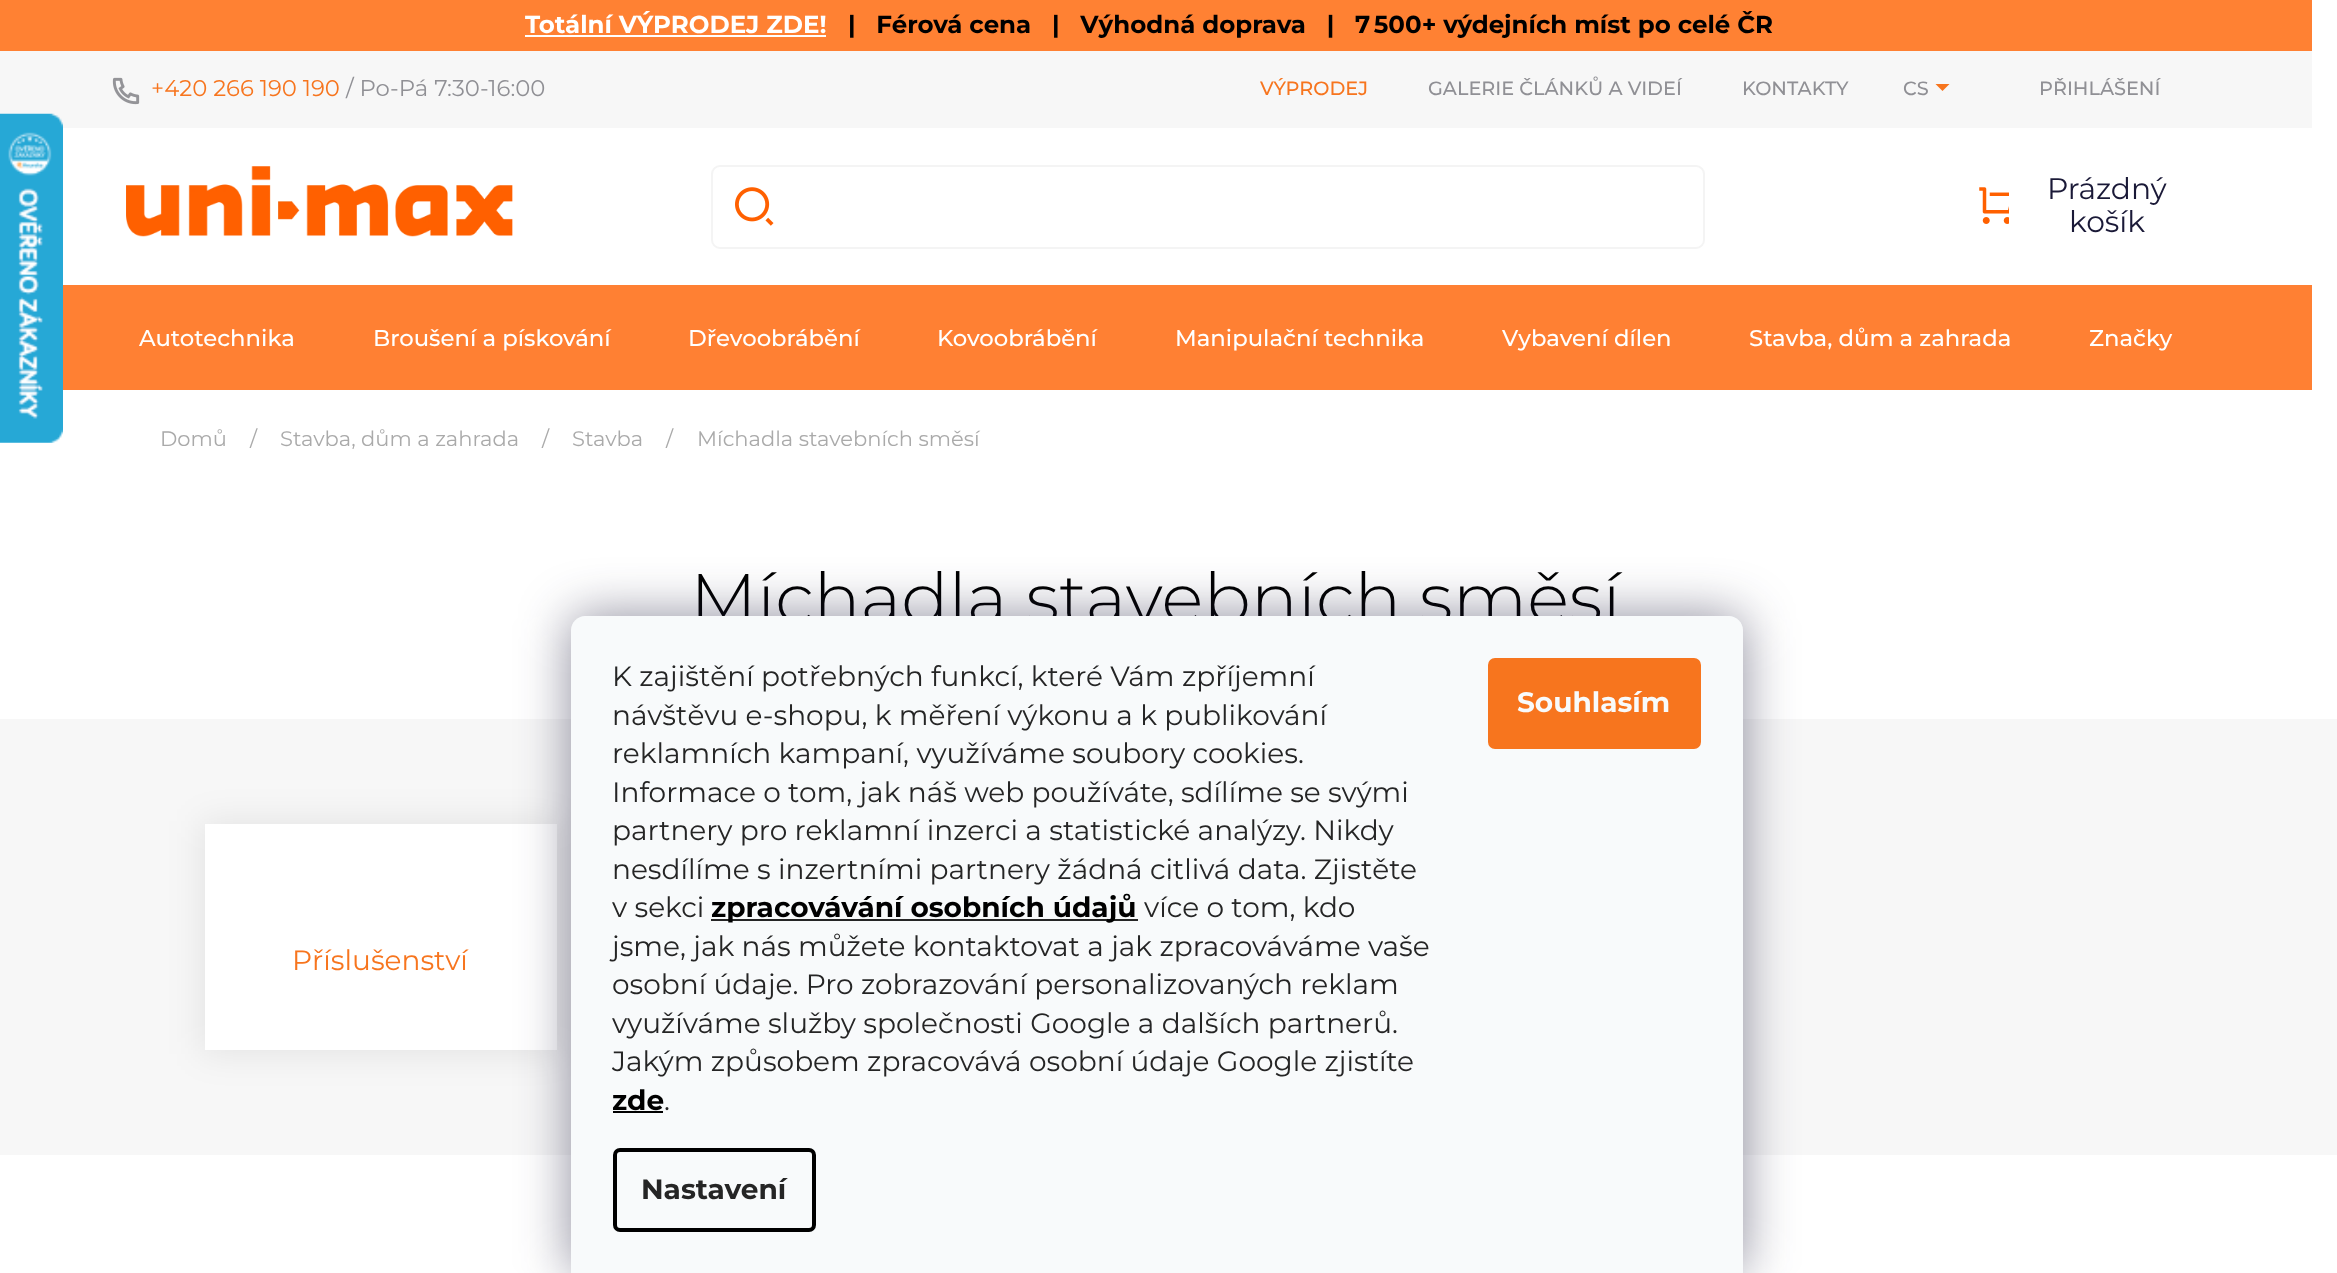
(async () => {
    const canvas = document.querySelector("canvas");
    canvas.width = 2337;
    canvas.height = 1273;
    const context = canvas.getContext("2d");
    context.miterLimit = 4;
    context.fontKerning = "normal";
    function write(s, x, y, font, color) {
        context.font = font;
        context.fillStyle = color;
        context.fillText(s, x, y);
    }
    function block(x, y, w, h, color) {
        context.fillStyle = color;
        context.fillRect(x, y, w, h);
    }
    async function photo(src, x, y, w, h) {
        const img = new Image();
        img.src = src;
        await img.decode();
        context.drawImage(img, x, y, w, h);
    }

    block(0, 0, 2337, 1273, "rgb(255, 255, 255)");
    block(0, 0, 2312, 51, "rgb(255, 129, 51)");
    write("Totální VÝPRODEJ ZDE!", 525, 33, "bold 24.5px Montserrat", "rgb(255, 255, 255)");
    block(525, 35, 301, 2, "rgb(255, 255, 255)");
    write("|   Férová cena   |   Výhodná doprava   |   7 500+ výdejních míst po celé ČR", 848, 33, "bold 24.5px Montserrat", "rgb(0, 0, 0)");
    write("Domů", 160, 446, "21px Montserrat", "rgb(170, 170, 170)");
    write("/", 250, 446, "21px Montserrat", "rgb(170, 170, 170)");
    write("Stavba, dům a zahrada", 280, 446, "21px Montserrat", "rgb(170, 170, 170)");
    write("/", 542, 446, "21px Montserrat", "rgb(170, 170, 170)");
    write("Stavba", 572, 446, "21px Montserrat", "rgb(170, 170, 170)");
    write("/", 666, 446, "21px Montserrat", "rgb(170, 170, 170)");
    write("Míchadla stavebních směsí", 697, 446, "21px Montserrat", "rgb(170, 170, 170)");
    context.save();
    context.beginPath();
    context.rect(0, 719, 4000, 436);
    context.clip();
    context.strokeStyle = "rgb(247, 247, 247)";
    context.lineWidth = 2338;
    context.strokeRect(-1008, -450, 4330, 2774);
    context.restore();
    block(0, 51, 2312, 77, "rgb(247, 247, 247)");
    await photo("media/1.png", 0, 113, 63, 330);
    await photo("media/2.png", 112, 77, 28, 28);
    write("+420 266 190 190", 151, 96, "22.75px Montserrat", "rgb(247, 117, 30)");
    write("/ Po-Pá 7:30-16:00", 346, 96, "22.75px Montserrat", "rgb(144, 144, 149)");
    write("VÝPRODEJ", 1260, 95, "500 19.25px Montserrat", "rgb(247, 117, 30)");
    write("GALERIE ČLÁNKŮ A VIDEÍ", 1428, 95, "500 19.25px Montserrat", "rgb(144, 144, 149)");
    write("KONTAKTY", 1742, 95, "500 19.25px Montserrat", "rgb(144, 144, 149)");
    write("CS", 1903, 95, "500 19.25px Montserrat", "rgb(144, 144, 149)");
    context.fillStyle = "rgb(247, 117, 30)";
    context.beginPath();
    context.moveTo(1935.5, 84);
    context.lineTo(1949.5, 84);
    context.lineTo(1942.5, 91);
    context.closePath();
    context.fill();
    write("PŘIHLÁŠENÍ", 2039, 95, "500 19.25px Montserrat", "rgb(144, 144, 149)");
    await photo("media/3.png", 126, 166, 387, 71);
    context.beginPath();
    context.roundRect(712, 166, 992, 82, 8);
    context.strokeStyle = "rgb(244, 244, 244)";
    context.lineWidth = 2;
    context.stroke();
    await photo("media/4.png", 735, 187, 39, 39);
    await photo("media/5.png", 1979, 187, 30, 37);
    write("Prázdný", 2047, 199, "29.75px Montserrat", "rgb(26, 25, 55)");
    write("košík", 2069, 232, "29.75px Montserrat", "rgb(26, 25, 55)");
    block(63, 285, 2249, 105, "rgb(255, 128, 51)");
    write("Autotechnika", 139, 346, "500 22.75px Montserrat", "rgb(255, 255, 255)");
    write("Broušení a pískování", 373, 346, "500 22.75px Montserrat", "rgb(255, 255, 255)");
    write("Dřevoobrábění", 688, 346, "500 22.75px Montserrat", "rgb(255, 255, 255)");
    write("Kovoobrábění", 937, 346, "500 22.75px Montserrat", "rgb(255, 255, 255)");
    write("Manipulační technika", 1175, 346, "500 22.75px Montserrat", "rgb(255, 255, 255)");
    write("Vybavení dílen", 1502, 346, "500 22.75px Montserrat", "rgb(255, 255, 255)");
    write("Stavba, dům a zahrada", 1749, 346, "500 22.75px Montserrat", "rgb(255, 255, 255)");
    write("Značky", 2089, 346, "500 22.75px Montserrat", "rgb(255, 255, 255)");
    write("Míchadla stavebních směsí", 690, 623, "300 70px Montserrat", "rgb(0, 0, 0)");
    block(161, 719, 1992, 436, "rgb(247, 247, 247)");
    context.fillStyle = "rgba(0, 0, 0, 0.08)";
    context.filter = "blur(17.5px)";
    context.beginPath();
    context.rect(201, 821, 359, 233);
    context.fill();
    context.filter = "none";
    block(205, 824, 352, 226, "rgb(255, 255, 255)");
    write("Příslušenství", 292, 970, "28px Montserrat", "rgb(247, 117, 30)");
    context.fillStyle = "rgba(27, 25, 57, 0.5)";
    context.filter = "blur(26px)";
    context.beginPath();
    context.roundRect(571, 616, 1172, 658, 14);
    context.fill();
    context.filter = "none";
    context.fillStyle = "rgb(248, 250, 251)";
    context.beginPath();
    context.moveTo(585, 616);
    context.lineTo(1729, 616);
    context.bezierCurveTo(1736.5, 616, 1743, 622.5, 1743, 630);
    context.lineTo(1743, 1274);
    context.lineTo(571, 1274);
    context.lineTo(571, 630);
    context.bezierCurveTo(571, 622.5, 577.5, 616, 585, 616);
    context.closePath();
    context.fill();
    write("K zajištění potřebných funkcí, které Vám zpříjemní", 612, 686, "28px Montserrat", "rgb(37, 37, 37)");
    write("návštěvu e-shopu, k měření výkonu a k publikování", 612, 725, "28px Montserrat", "rgb(37, 37, 37)");
    write("reklamních kampaní, využíváme soubory cookies.", 612, 763, "28px Montserrat", "rgb(37, 37, 37)");
    write("Informace o tom, jak náš web používáte, sdílíme se svými", 612, 802, "28px Montserrat", "rgb(37, 37, 37)");
    write("partnery pro reklamní inzerci a statistické analýzy. Nikdy", 612, 840, "28px Montserrat", "rgb(37, 37, 37)");
    write("nesdílíme s inzertními partnery žádná citlivá data. Zjistěte", 612, 879, "28px Montserrat", "rgb(37, 37, 37)");
    write("v sekci", 612, 917, "28px Montserrat", "rgb(37, 37, 37)");
    block(711, 919, 427, 2, "rgb(37, 37, 37)");
    write("zpracovávání osobních údajů", 711, 917, "bold 28px Montserrat", "rgb(0, 0, 0)");
    write("více o tom, kdo", 1144, 917, "28px Montserrat", "rgb(37, 37, 37)");
    write("jsme, jak nás můžete kontaktovat a jak zpracováváme vaše", 612, 956, "28px Montserrat", "rgb(37, 37, 37)");
    write("osobní údaje. Pro zobrazování personalizovaných reklam", 612, 994, "28px Montserrat", "rgb(37, 37, 37)");
    write("využíváme služby společnosti Google a dalších partnerů.", 612, 1033, "28px Montserrat", "rgb(37, 37, 37)");
    write("Jakým způsobem zpracovává osobní údaje Google zjistíte", 612, 1071, "28px Montserrat", "rgb(37, 37, 37)");
    write("zde", 612, 1110, "bold 28px Montserrat", "rgb(0, 0, 0)");
    block(613, 1111, 50, 2, "rgb(0, 0, 0)");
    write(".", 664, 1110, "28px Montserrat", "rgb(37, 37, 37)");
    context.beginPath();
    context.roundRect(615, 1150, 199, 80, 5);
    context.strokeStyle = "rgb(0, 0, 0)";
    context.lineWidth = 4;
    context.stroke();
    write("Nastavení", 641, 1199, "bold 28px Montserrat", "rgb(37, 37, 37)");
    context.fillStyle = "rgb(247, 117, 30)";
    context.beginPath();
    context.roundRect(1490, 660, 209, 87, 5);
    context.fill();
    context.strokeStyle = "rgb(247, 117, 30)";
    context.stroke();
    write("Souhlasím", 1517, 712, "bold 28px Montserrat", "rgb(248, 250, 251)");
})();
